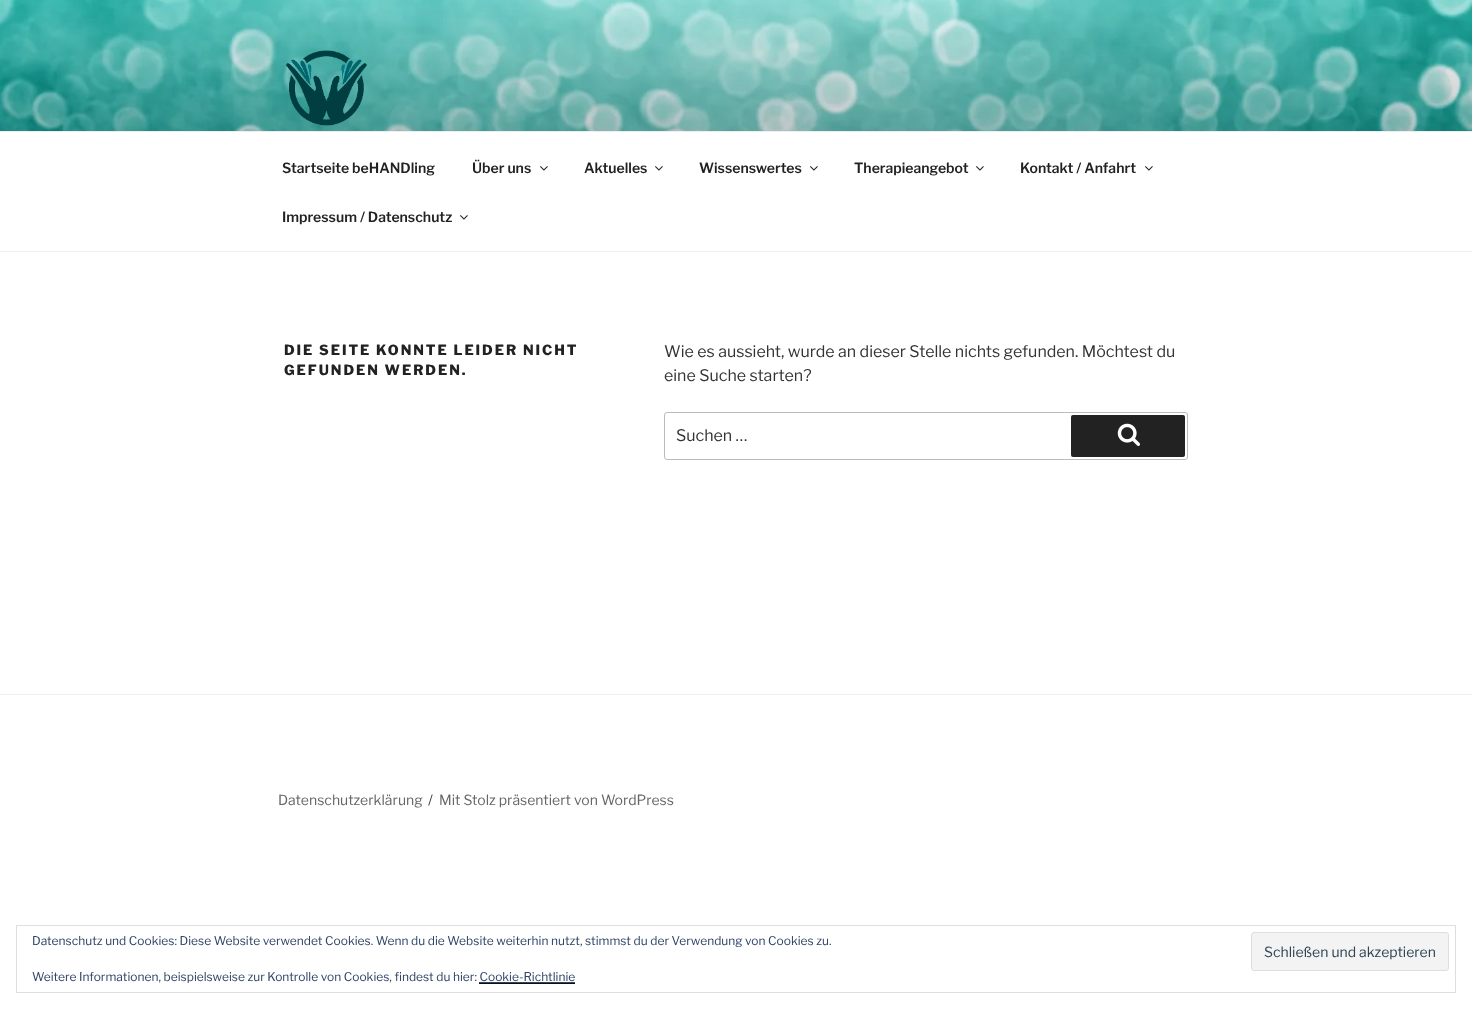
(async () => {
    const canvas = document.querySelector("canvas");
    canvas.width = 1472;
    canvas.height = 1009;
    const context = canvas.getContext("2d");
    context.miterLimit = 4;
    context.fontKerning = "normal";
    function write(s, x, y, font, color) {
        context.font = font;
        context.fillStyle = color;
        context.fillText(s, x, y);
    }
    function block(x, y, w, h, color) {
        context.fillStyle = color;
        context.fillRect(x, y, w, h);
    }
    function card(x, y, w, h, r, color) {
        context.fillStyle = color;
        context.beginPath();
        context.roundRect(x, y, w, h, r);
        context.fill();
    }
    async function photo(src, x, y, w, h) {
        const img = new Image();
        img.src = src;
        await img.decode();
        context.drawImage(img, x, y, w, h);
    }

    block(0, 0, 1472, 1009, "rgb(255, 255, 255)");
    await photo("media/1.png", 0, 0, 1472, 131);
    await photo("media/2.png", 286, 50, 81, 76);
    block(0, 131, 1472, 1, "rgb(238, 238, 238)");
    block(0, 251, 1472, 1, "rgb(238, 238, 238)");
    write("Startseite beHANDling", 282, 173, "100 14px 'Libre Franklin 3'", "rgb(34, 34, 34)");
    write("Über uns", 472, 173, "100 14px 'Libre Franklin 3'", "rgb(34, 34, 34)");
    await photo("media/3.png", 540, 166, 8, 5);
    write("Aktuelles", 584, 173, "100 14px 'Libre Franklin 3'", "rgb(34, 34, 34)");
    await photo("media/3.png", 655, 166, 8, 5);
    write("Wissenswertes", 699, 173, "100 14px 'Libre Franklin 3'", "rgb(34, 34, 34)");
    await photo("media/3.png", 810, 166, 8, 5);
    write("Therapieangebot", 854, 173, "100 14px 'Libre Franklin 3'", "rgb(34, 34, 34)");
    await photo("media/3.png", 976, 166, 8, 5);
    write("Kontakt / Anfahrt", 1020, 173, "100 14px 'Libre Franklin 3'", "rgb(34, 34, 34)");
    await photo("media/3.png", 1145, 166, 8, 5);
    write("Impressum / Datenschutz", 282, 222, "100 14px 'Libre Franklin 3'", "rgb(34, 34, 34)");
    await photo("media/3.png", 460, 215, 8, 5);
    context.letterSpacing = "1.95px";
    write("DIE SEITE KONNTE LEIDER NICHT", 284, 355, "100 14px Libre Franklin", "rgb(34, 34, 34)");
    write("GEFUNDEN WERDEN.", 284, 375, "100 14px Libre Franklin", "rgb(34, 34, 34)");
    context.letterSpacing = "0px";
    write("Wie es aussieht, wurde an dieser Stelle nichts gefunden. Möchtest du", 664, 357, "100 16px 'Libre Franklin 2'", "rgb(51, 51, 51)");
    write("eine Suche starten?", 664, 381, "100 16px 'Libre Franklin 2'", "rgb(51, 51, 51)");
    context.beginPath();
    context.roundRect(664.5, 412.5, 523, 47, 2.5);
    context.strokeStyle = "rgb(187, 187, 187)";
    context.stroke();
    write("Suchen …", 676, 441, "100 16px 'Libre Franklin 2'", "rgb(51, 51, 51)");
    card(1071, 415, 114, 42, 2, "rgb(34, 34, 34)");
    await photo("media/4.png", 1117, 423, 23, 23);
    block(0, 694, 1472, 1, "rgb(238, 238, 238)");
    write("Datenschutzerklärung", 278, 805, "100 14px 'Libre Franklin 2'", "rgb(102, 102, 102)");
    write("/", 428, 805, "100 14px 'Libre Franklin 2'", "rgb(51, 51, 51)");
    write("Mit Stolz präsentiert von WordPress", 439, 805, "100 14px 'Libre Franklin 2'", "rgb(102, 102, 102)");
    context.strokeStyle = "rgb(222, 222, 222)";
    context.strokeRect(16.5, 925.5, 1439, 67);
    write("Datenschutz und Cookies: Diese Website verwendet Cookies. Wenn du die Website weiterhin nutzt, stimmst du der Verwendung von Cookies zu.", 32, 945, "100 12px 'Libre Franklin 2'", "rgb(46, 68, 103)");
    context.fillStyle = "rgb(243, 243, 243)";
    context.beginPath();
    context.roundRect(1251.5, 932.5, 197, 38, 2.5);
    context.fill();
    context.stroke();
    write("Schließen und akzeptieren", 1264, 957, "100 14px 'Libre Franklin 2'", "rgb(46, 68, 83)");
    write("Weitere Informationen, beispielsweise zur Kontrolle von Cookies, findest du hier: Cookie-Richtlinie", 32, 981, "100 12px 'Libre Franklin 2'", "rgb(46, 68, 103)");
    block(479, 982, 96, 1, "rgb(46, 68, 103)");
    block(479, 983, 96, 1, "rgb(15, 15, 15)");
})();
